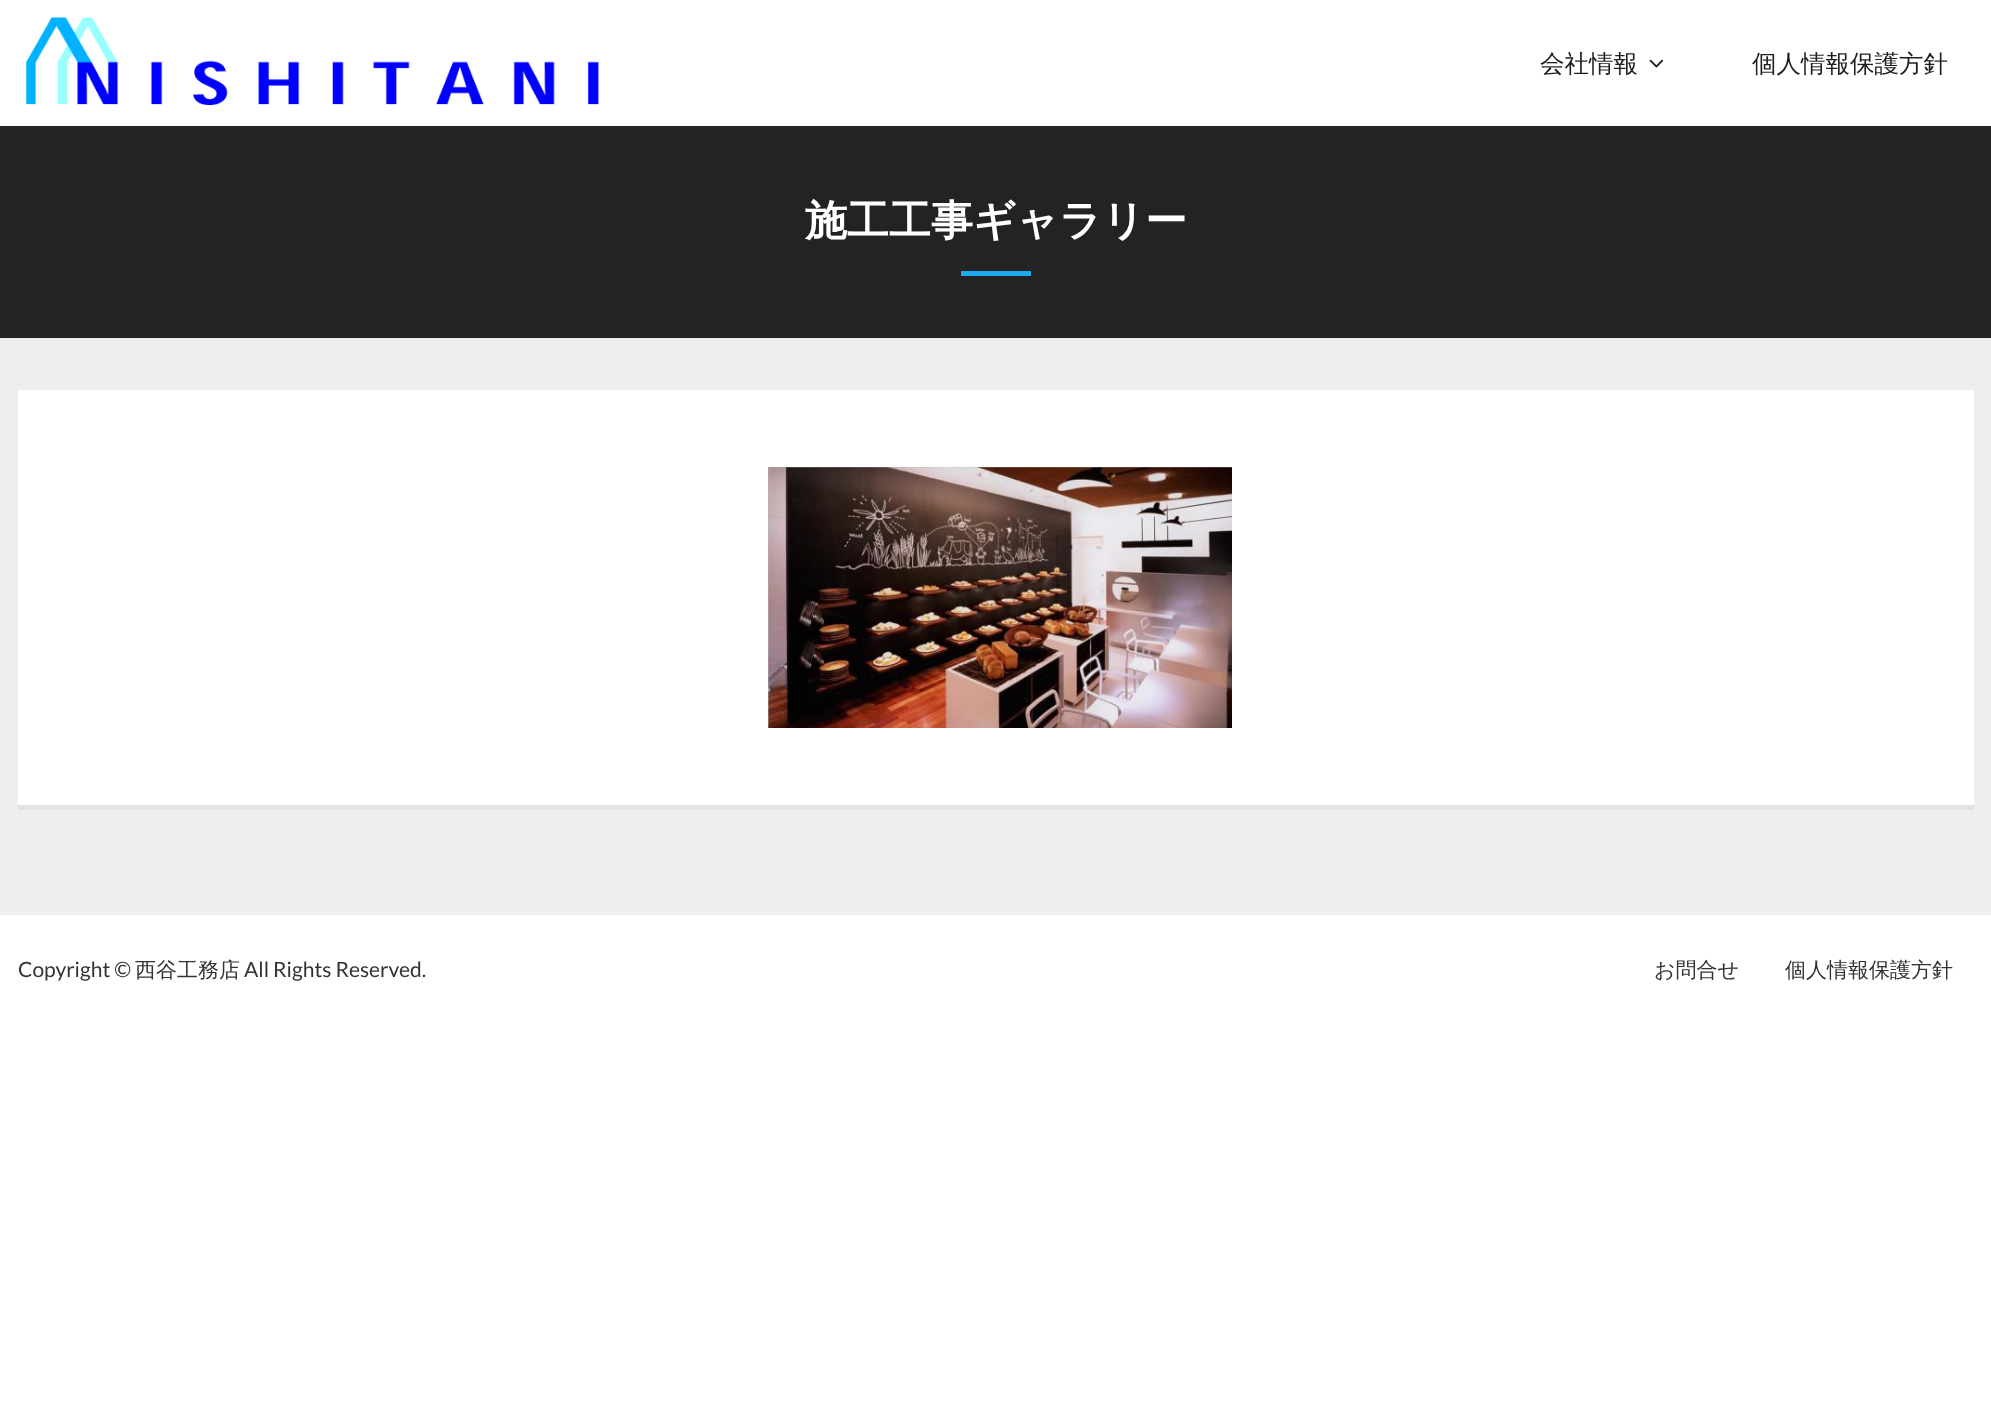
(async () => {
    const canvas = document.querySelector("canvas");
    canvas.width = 1991;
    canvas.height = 1409;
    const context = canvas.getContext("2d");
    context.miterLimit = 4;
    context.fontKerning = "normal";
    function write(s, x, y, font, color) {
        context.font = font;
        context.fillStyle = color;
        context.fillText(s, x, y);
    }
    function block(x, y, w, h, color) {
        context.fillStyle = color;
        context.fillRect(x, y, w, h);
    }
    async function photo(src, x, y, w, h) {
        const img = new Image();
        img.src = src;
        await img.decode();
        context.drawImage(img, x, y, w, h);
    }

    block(0, 0, 1991, 1409, "rgb(255, 255, 255)");
    block(0, 338, 1991, 577, "rgb(238, 238, 238)");
    await photo("media/1.png", 26, 17, 573, 88);
    write("会社情報", 1540, 72, "500 24.5px WenQuanYi Zen Hei", "rgb(30, 30, 30)");
    await photo("media/2.png", 1649, 59, 15, 9);
    write("個人情報保護方針", 1752, 72, "500 24.5px WenQuanYi Zen Hei", "rgb(30, 30, 30)");
    block(0, 126, 1991, 212, "rgb(35, 35, 35)");
    write("施工工事ギャラリー", 805, 235, "bold 42px WenQuanYi Zen Hei", "rgb(255, 255, 255)");
    block(961, 271, 70, 5, "rgb(30, 170, 241)");
    block(18, 390, 1956, 415, "rgb(255, 255, 255)");
    block(18, 805, 1956, 5, "rgb(226, 226, 226)");
    block(768, 467, 464, 261, "rgb(179, 179, 179)");
    await photo("media/3.png", 768, 467, 464, 261);
    write("Copyright ©", 18, 977, "21px Lato", "rgb(51, 51, 51)");
    write("西谷工務店", 135, 977, "500 21px WenQuanYi Zen Hei", "rgb(51, 51, 51)");
    write("All Rights Reserved.", 244, 977, "21px Lato", "rgb(51, 51, 51)");
    write("お問合せ", 1654, 977, "500 21px WenQuanYi Zen Hei", "rgb(51, 51, 51)");
    write("個人情報保護方針", 1785, 977, "500 21px WenQuanYi Zen Hei", "rgb(51, 51, 51)");
})();
